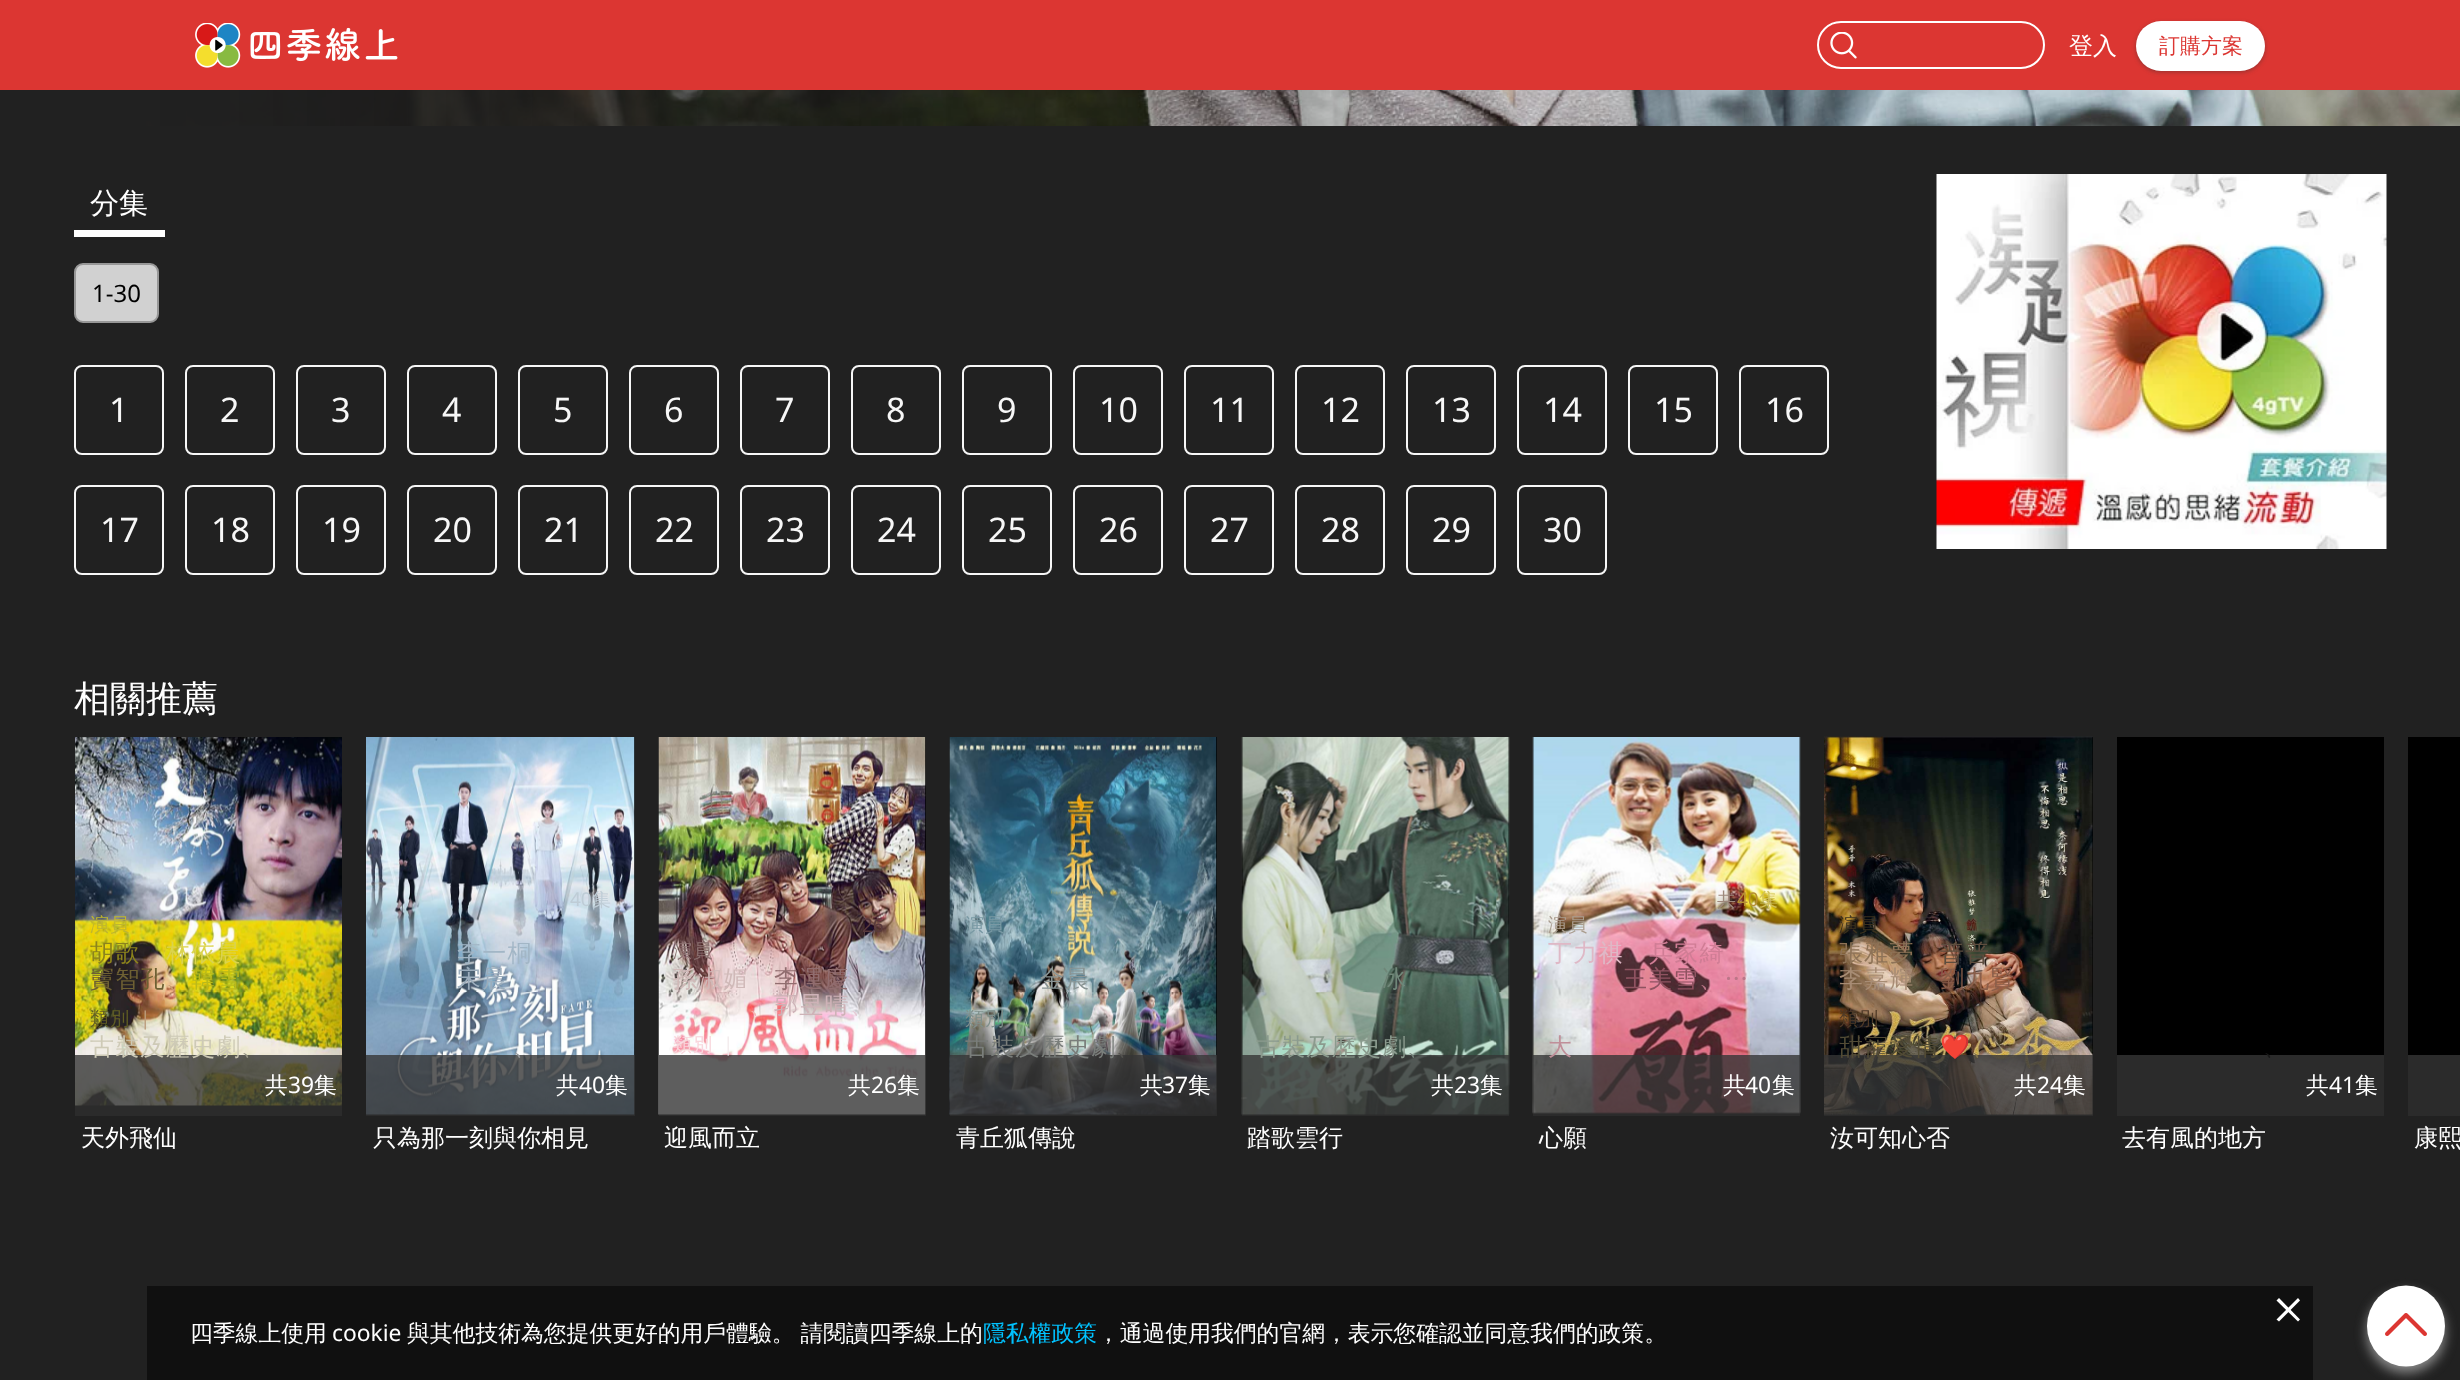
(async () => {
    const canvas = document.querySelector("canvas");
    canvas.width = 2460;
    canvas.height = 1380;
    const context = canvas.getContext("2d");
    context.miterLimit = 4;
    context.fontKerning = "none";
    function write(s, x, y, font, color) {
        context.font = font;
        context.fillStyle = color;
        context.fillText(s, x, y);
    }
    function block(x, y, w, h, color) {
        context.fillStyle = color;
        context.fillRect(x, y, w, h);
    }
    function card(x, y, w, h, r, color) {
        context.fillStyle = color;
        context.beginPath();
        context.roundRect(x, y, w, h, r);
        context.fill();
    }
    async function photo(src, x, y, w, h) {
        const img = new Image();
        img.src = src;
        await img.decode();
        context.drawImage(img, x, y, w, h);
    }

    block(0, 0, 2460, 1380, "rgb(33, 33, 33)");
    block(0, 0, 2460, 90, "rgb(220, 54, 50)");
    await photo("media/1.png", 195, 23, 203, 45);
    context.beginPath();
    context.roundRect(1818, 22, 226, 46, 23);
    context.strokeStyle = "rgb(255, 255, 255)";
    context.lineWidth = 2;
    context.stroke();
    await photo("media/2.png", 1830, 32, 27, 27);
    write("登入", 2069, 54, "500 24px WenQuanYi Zen Hei", "rgb(255, 255, 255)");
    context.fillStyle = "rgba(50, 47, 47, 0.42)";
    context.filter = "blur(2px)";
    context.beginPath();
    context.roundRect(2136, 23, 129, 49, 24.5);
    context.fill();
    context.filter = "none";
    card(2136, 21, 129, 50, 25, "rgb(255, 255, 255)");
    write("訂購方案", 2159, 53, "500 21px WenQuanYi Zen Hei", "rgb(220, 54, 50)");
    context.fillStyle = "rgb(139, 139, 139)";
    context.filter = "blur(6px)";
    context.beginPath();
    context.roundRect(2367, 1292, 78, 81, 39);
    context.fill();
    context.filter = "none";
    context.fillStyle = "rgb(255, 255, 255)";
    context.beginPath();
    context.ellipse(2406, 1326, 39, 40.5, 0, 0, Math.PI * 2);
    context.fill();
    await photo("media/3.png", 2385, 1313, 42, 23);
    await photo("media/4.png", 0, 90, 2460, 36);
    block(74, 230, 91, 7, "rgb(255, 255, 255)");
    write("分集", 90, 213, "500 29px WenQuanYi Zen Hei", "rgb(255, 255, 255)");
    context.fillStyle = "rgb(209, 209, 209)";
    context.beginPath();
    context.roundRect(75, 264, 83, 58, 8);
    context.fill();
    context.strokeStyle = "rgb(151, 151, 151)";
    context.stroke();
    write("1-30", 92, 302, "24px Noto Sans", "rgb(0, 0, 0)");
    context.beginPath();
    context.roundRect(75, 366, 88, 88, 7);
    context.strokeStyle = "rgb(247, 247, 247)";
    context.stroke();
    write("1", 109, 422, "34px Noto Sans", "rgb(247, 247, 247)");
    context.beginPath();
    context.roundRect(186, 366, 88, 88, 7);
    context.stroke();
    write("2", 220, 422, "34px Noto Sans", "rgb(247, 247, 247)");
    context.beginPath();
    context.roundRect(297, 366, 88, 88, 7);
    context.stroke();
    write("3", 331, 422, "34px Noto Sans", "rgb(247, 247, 247)");
    context.beginPath();
    context.roundRect(408, 366, 88, 88, 7);
    context.stroke();
    write("4", 442, 422, "34px Noto Sans", "rgb(247, 247, 247)");
    context.beginPath();
    context.roundRect(519, 366, 88, 88, 7);
    context.stroke();
    write("5", 553, 422, "34px Noto Sans", "rgb(247, 247, 247)");
    context.beginPath();
    context.roundRect(630, 366, 88, 88, 7);
    context.stroke();
    write("6", 664, 422, "34px Noto Sans", "rgb(247, 247, 247)");
    context.beginPath();
    context.roundRect(741, 366, 88, 88, 7);
    context.stroke();
    write("7", 775, 422, "34px Noto Sans", "rgb(247, 247, 247)");
    context.beginPath();
    context.roundRect(852, 366, 88, 88, 7);
    context.stroke();
    write("8", 886, 422, "34px Noto Sans", "rgb(247, 247, 247)");
    context.beginPath();
    context.roundRect(963, 366, 88, 88, 7);
    context.stroke();
    write("9", 997, 422, "34px Noto Sans", "rgb(247, 247, 247)");
    context.beginPath();
    context.roundRect(1074, 366, 88, 88, 7);
    context.stroke();
    write("10", 1099, 422, "34px Noto Sans", "rgb(247, 247, 247)");
    context.beginPath();
    context.roundRect(1185, 366, 88, 88, 7);
    context.stroke();
    write("11", 1210, 422, "34px Noto Sans", "rgb(247, 247, 247)");
    context.beginPath();
    context.roundRect(1296, 366, 88, 88, 7);
    context.stroke();
    write("12", 1321, 422, "34px Noto Sans", "rgb(247, 247, 247)");
    context.beginPath();
    context.roundRect(1407, 366, 88, 88, 7);
    context.stroke();
    write("13", 1432, 422, "34px Noto Sans", "rgb(247, 247, 247)");
    context.beginPath();
    context.roundRect(1518, 366, 88, 88, 7);
    context.stroke();
    write("14", 1543, 422, "34px Noto Sans", "rgb(247, 247, 247)");
    context.beginPath();
    context.roundRect(1629, 366, 88, 88, 7);
    context.stroke();
    write("15", 1654, 422, "34px Noto Sans", "rgb(247, 247, 247)");
    context.beginPath();
    context.roundRect(1740, 366, 88, 88, 7);
    context.stroke();
    write("16", 1765, 422, "34px Noto Sans", "rgb(247, 247, 247)");
    context.beginPath();
    context.roundRect(75, 486, 88, 88, 7);
    context.stroke();
    write("17", 100, 542, "34px Noto Sans", "rgb(247, 247, 247)");
    context.beginPath();
    context.roundRect(186, 486, 88, 88, 7);
    context.stroke();
    write("18", 211, 542, "34px Noto Sans", "rgb(247, 247, 247)");
    context.beginPath();
    context.roundRect(297, 486, 88, 88, 7);
    context.stroke();
    write("19", 322, 542, "34px Noto Sans", "rgb(247, 247, 247)");
    context.beginPath();
    context.roundRect(408, 486, 88, 88, 7);
    context.stroke();
    write("20", 433, 542, "34px Noto Sans", "rgb(247, 247, 247)");
    context.beginPath();
    context.roundRect(519, 486, 88, 88, 7);
    context.stroke();
    write("21", 544, 542, "34px Noto Sans", "rgb(247, 247, 247)");
    context.beginPath();
    context.roundRect(630, 486, 88, 88, 7);
    context.stroke();
    write("22", 655, 542, "34px Noto Sans", "rgb(247, 247, 247)");
    context.beginPath();
    context.roundRect(741, 486, 88, 88, 7);
    context.stroke();
    write("23", 766, 542, "34px Noto Sans", "rgb(247, 247, 247)");
    context.beginPath();
    context.roundRect(852, 486, 88, 88, 7);
    context.stroke();
    write("24", 877, 542, "34px Noto Sans", "rgb(247, 247, 247)");
    context.beginPath();
    context.roundRect(963, 486, 88, 88, 7);
    context.stroke();
    write("25", 988, 542, "34px Noto Sans", "rgb(247, 247, 247)");
    context.beginPath();
    context.roundRect(1074, 486, 88, 88, 7);
    context.stroke();
    write("26", 1099, 542, "34px Noto Sans", "rgb(247, 247, 247)");
    context.beginPath();
    context.roundRect(1185, 486, 88, 88, 7);
    context.stroke();
    write("27", 1210, 542, "34px Noto Sans", "rgb(247, 247, 247)");
    context.beginPath();
    context.roundRect(1296, 486, 88, 88, 7);
    context.stroke();
    write("28", 1321, 542, "34px Noto Sans", "rgb(247, 247, 247)");
    context.beginPath();
    context.roundRect(1407, 486, 88, 88, 7);
    context.stroke();
    write("29", 1432, 542, "34px Noto Sans", "rgb(247, 247, 247)");
    context.beginPath();
    context.roundRect(1518, 486, 88, 88, 7);
    context.stroke();
    write("30", 1543, 542, "34px Noto Sans", "rgb(247, 247, 247)");
    await photo("media/5.png", 1936, 174, 451, 375);
    write("相關推薦", 74, 711, "500 36px WenQuanYi Zen Hei", "rgb(255, 255, 255)");
    block(75, 1105, 267, 11, "rgb(0, 0, 0)");
    await photo("media/6.png", 75, 737, 267, 369);
    context.letterSpacing = "1.25px";
    write("演員", 90, 931, "500 19px WenQuanYi Zen Hei", "rgb(191, 182, 47)");
    write("胡歌", 90, 961, "500 24px WenQuanYi Zen Hei", "rgb(140, 131, 28)");
    write("林依晨", 166, 961, "500 24px WenQuanYi Zen Hei", "rgb(219, 211, 77)");
    write("竇智孔", 90, 987, "500 24px WenQuanYi Zen Hei", "rgb(110, 96, 51)");
    write("、", 166, 987, "500 24px WenQuanYi Zen Hei", "rgb(202, 154, 109)");
    write("韓雪", 191, 987, "500 24px WenQuanYi Zen Hei", "rgb(186, 186, 26)");
    write("、…", 241, 987, "500 24px WenQuanYi Zen Hei", "rgb(193, 187, 19)");
    write("類別", 90, 1025, "500 19px WenQuanYi Zen Hei", "rgb(97, 94, 36)");
    write("|", 140, 1025, "19px Noto Sans", "rgb(188, 157, 124)");
    block(75, 1055, 267, 61, "rgba(54, 54, 54, 0.8)");
    write("古裝及歷史劇", 90, 1055, "500 24px WenQuanYi Zen Hei", "rgb(206, 202, 182)");
    write("、", 241, 1055, "500 24px WenQuanYi Zen Hei", "rgb(148, 146, 131)");
    context.letterSpacing = "0px";
    write("共", 265, 1093, "500 22.8px WenQuanYi Zen Hei", "rgb(255, 255, 255)");
    write("39", 288, 1093, "22.8px Noto Sans", "rgb(255, 255, 255)");
    write("集", 314, 1093, "500 22.8px WenQuanYi Zen Hei", "rgb(255, 255, 255)");
    write("天外飛仙", 81, 1146, "500 24px WenQuanYi Zen Hei", "rgb(255, 255, 255)");
    block(366, 737, 269, 379, "rgb(0, 0, 0)");
    await photo("media/7.png", 366, 737, 269, 378);
    write("40", 570, 906, "19px Noto Sans", "rgb(190, 204, 214)");
    write("集", 592, 906, "500 19px WenQuanYi Zen Hei", "rgb(190, 204, 214)");
    context.letterSpacing = "1.25px";
    write("李一桐", 457, 961, "500 24px WenQuanYi Zen Hei", "rgb(162, 182, 198)");
    write("宋晨", 457, 987, "500 24px WenQuanYi Zen Hei", "rgb(155, 173, 188)");
    block(366, 1055, 269, 61, "rgba(54, 54, 54, 0.8)");
    write("、", 513, 1055, "500 24px WenQuanYi Zen Hei", "rgb(148, 150, 152)");
    context.letterSpacing = "0px";
    write("共", 556, 1093, "500 22.8px WenQuanYi Zen Hei", "rgb(255, 255, 255)");
    write("40", 579, 1093, "22.8px Noto Sans", "rgb(255, 255, 255)");
    write("集", 605, 1093, "500 22.8px WenQuanYi Zen Hei", "rgb(255, 255, 255)");
    write("只為那一刻與你相見", 373, 1146, "500 24px WenQuanYi Zen Hei", "rgb(255, 255, 255)");
    block(659, 737, 267, 379, "rgb(0, 0, 0)");
    await photo("media/8.png", 658, 737, 268, 378);
    write("26", 862, 932, "19px Noto Sans", "rgb(89, 58, 60)");
    context.save();
    context.beginPath();
    context.rect(674, 939, 237, 80);
    context.clip();
    context.letterSpacing = "1.25px";
    write("演員", 673, 957, "500 19px WenQuanYi Zen Hei", "rgb(141, 115, 114)");
    context.restore();
    context.letterSpacing = "1.25px";
    write("孫淑媚", 673, 987, "500 24px WenQuanYi Zen Hei", "rgb(208, 185, 184)");
    write("李運慶", 774, 987, "500 24px WenQuanYi Zen Hei", "rgb(145, 109, 111)");
    write("、", 749, 1013, "500 24px WenQuanYi Zen Hei", "rgb(246, 182, 181)");
    write("郭昱晴", 774, 1013, "500 24px WenQuanYi Zen Hei", "rgb(206, 178, 183)");
    write("、", 850, 1013, "500 24px WenQuanYi Zen Hei", "rgb(228, 203, 214)");
    write("類別", 673, 1051, "500 19px WenQuanYi Zen Hei", "rgb(249, 214, 220)");
    block(659, 1055, 267, 61, "rgba(54, 54, 54, 0.8)");
    write("|", 723, 1051, "19px Noto Sans", "rgb(244, 236, 237)");
    context.letterSpacing = "0px";
    write("共", 848, 1093, "500 22.8px WenQuanYi Zen Hei", "rgb(255, 255, 255)");
    write("26", 871, 1093, "22.8px Noto Sans", "rgb(255, 255, 255)");
    write("集", 897, 1093, "500 22.8px WenQuanYi Zen Hei", "rgb(255, 255, 255)");
    write("迎風而立", 664, 1146, "500 24px WenQuanYi Zen Hei", "rgb(255, 255, 255)");
    block(950, 737, 267, 379, "rgb(0, 0, 0)");
    await photo("media/9.png", 949, 737, 268, 378);
    context.letterSpacing = "1.25px";
    write("演員", 965, 931, "500 19px WenQuanYi Zen Hei", "rgb(121, 153, 164)");
    write("金晨", 1040, 987, "500 24px WenQuanYi Zen Hei", "rgb(137, 148, 148)");
    write("…", 1166, 987, "500 24px WenQuanYi Zen Hei", "rgb(83, 119, 130)");
    write("類別", 965, 1025, "500 19px WenQuanYi Zen Hei", "rgb(127, 144, 140)");
    block(950, 1055, 267, 61, "rgba(54, 54, 54, 0.8)");
    write("古裝及歷史劇", 965, 1055, "500 24px WenQuanYi Zen Hei", "rgb(122, 126, 123)");
    write("、", 1116, 1055, "500 24px WenQuanYi Zen Hei", "rgb(82, 81, 78)");
    context.letterSpacing = "0px";
    write("共", 1140, 1093, "500 22.8px WenQuanYi Zen Hei", "rgb(255, 255, 255)");
    write("37", 1162, 1093, "22.8px Noto Sans", "rgb(255, 255, 255)");
    write("集", 1188, 1093, "500 22.8px WenQuanYi Zen Hei", "rgb(255, 255, 255)");
    write("青丘狐傳說", 956, 1146, "500 24px WenQuanYi Zen Hei", "rgb(255, 255, 255)");
    block(1242, 737, 267, 379, "rgb(0, 0, 0)");
    await photo("media/10.png", 1241, 737, 269, 378);
    context.letterSpacing = "1.25px";
    write("冰", 1382, 987, "500 24px WenQuanYi Zen Hei", "rgb(112, 135, 121)");
    block(1242, 1055, 267, 61, "rgba(54, 54, 54, 0.8)");
    write("古裝及歷史劇", 1256, 1055, "500 24px WenQuanYi Zen Hei", "rgb(139, 155, 142)");
    write("、", 1407, 1055, "500 24px WenQuanYi Zen Hei", "rgb(113, 126, 119)");
    context.letterSpacing = "0px";
    write("共", 1431, 1093, "500 22.8px WenQuanYi Zen Hei", "rgb(255, 255, 255)");
    write("23", 1454, 1093, "22.8px Noto Sans", "rgb(255, 255, 255)");
    write("集", 1480, 1093, "500 22.8px WenQuanYi Zen Hei", "rgb(255, 255, 255)");
    write("踏歌雲行", 1247, 1146, "500 24px WenQuanYi Zen Hei", "rgb(255, 255, 255)");
    block(1533, 737, 267, 379, "rgb(0, 0, 0)");
    await photo("media/11.png", 1532, 737, 269, 377);
    write("共", 1717, 906, "500 19px WenQuanYi Zen Hei", "rgb(158, 136, 124)");
    write("40", 1737, 906, "19px Noto Sans", "rgb(182, 144, 52)");
    write("集", 1759, 906, "500 19px WenQuanYi Zen Hei", "rgb(208, 192, 88)");
    context.letterSpacing = "1.25px";
    write("演員", 1548, 931, "500 19px WenQuanYi Zen Hei", "rgb(170, 157, 143)");
    write("丁力祺", 1548, 961, "500 24px WenQuanYi Zen Hei", "rgb(223, 184, 198)");
    write("兵家綺", 1649, 961, "500 24px WenQuanYi Zen Hei", "rgb(208, 125, 149)");
    write("王美雪", 1623, 987, "500 24px WenQuanYi Zen Hei", "rgb(143, 83, 97)");
    write("、…", 1699, 987, "500 24px WenQuanYi Zen Hei", "rgb(187, 118, 136)");
    block(1533, 1055, 267, 61, "rgba(54, 54, 54, 0.8)");
    write("大", 1548, 1055, "500 24px WenQuanYi Zen Hei", "rgb(192, 143, 153)");
    context.letterSpacing = "0px";
    write("共", 1723, 1093, "500 22.8px WenQuanYi Zen Hei", "rgb(255, 255, 255)");
    write("40", 1745, 1093, "22.8px Noto Sans", "rgb(255, 255, 255)");
    write("集", 1772, 1093, "500 22.8px WenQuanYi Zen Hei", "rgb(255, 255, 255)");
    write("心願", 1539, 1146, "500 24px WenQuanYi Zen Hei", "rgb(255, 255, 255)");
    block(1824, 737, 269, 379, "rgb(0, 0, 0)");
    await photo("media/12.png", 1824, 736, 269, 379);
    context.letterSpacing = "1.25px";
    write("演員", 1839, 931, "500 19px WenQuanYi Zen Hei", "rgb(59, 49, 30)");
    write("張雅夢", 1839, 961, "500 24px WenQuanYi Zen Hei", "rgb(142, 115, 87)");
    write("普普", 1940, 961, "500 24px WenQuanYi Zen Hei", "rgb(93, 77, 62)");
    write("、", 1991, 961, "500 24px WenQuanYi Zen Hei", "rgb(207, 157, 136)");
    write("李嘉輝", 1839, 987, "500 24px WenQuanYi Zen Hei", "rgb(167, 140, 116)");
    write("劉九賢", 1940, 987, "500 24px WenQuanYi Zen Hei", "rgb(138, 94, 74)");
    write("類別", 1839, 1025, "500 19px WenQuanYi Zen Hei", "rgb(79, 58, 39)");
    block(1824, 1055, 269, 61, "rgba(54, 54, 54, 0.8)");
    write("甜寵愛情", 1839, 1055, "500 24px WenQuanYi Zen Hei", "rgb(82, 75, 53)");
    write("❤️", 1940, 1055, "24px Noto Color Emoji", "rgb(120, 103, 66)");
    write("、", 1971, 1055, "500 24px WenQuanYi Zen Hei", "rgb(127, 113, 77)");
    context.letterSpacing = "0px";
    write("共", 2014, 1093, "500 22.8px WenQuanYi Zen Hei", "rgb(255, 255, 255)");
    write("24", 2037, 1093, "22.8px Noto Sans", "rgb(255, 255, 255)");
    write("集", 2063, 1093, "500 22.8px WenQuanYi Zen Hei", "rgb(255, 255, 255)");
    write("汝可知心否", 1830, 1146, "500 24px WenQuanYi Zen Hei", "rgb(255, 255, 255)");
    block(2117, 737, 267, 318, "rgb(0, 0, 0)");
    block(2117, 1055, 267, 61, "rgb(43, 43, 43)");
    context.letterSpacing = "1.25px";
    write("、", 2263, 1055, "500 24px WenQuanYi Zen Hei", "rgb(25, 25, 25)");
    context.letterSpacing = "0px";
    write("共", 2306, 1093, "500 22.8px WenQuanYi Zen Hei", "rgb(255, 255, 255)");
    write("41", 2329, 1093, "22.8px Noto Sans", "rgb(255, 255, 255)");
    write("集", 2355, 1093, "500 22.8px WenQuanYi Zen Hei", "rgb(255, 255, 255)");
    write("去有風的地方", 2122, 1146, "500 24px WenQuanYi Zen Hei", "rgb(255, 255, 255)");
    block(2408, 737, 52, 318, "rgb(0, 0, 0)");
    block(2408, 1055, 52, 61, "rgb(43, 43, 43)");
    write("康熙", 2414, 1146, "500 24px WenQuanYi Zen Hei", "rgb(255, 255, 255)");
    block(147, 1286, 2166, 94, "rgb(16, 16, 16)");
    context.fillStyle = "rgb(255, 255, 255)";
    context.beginPath();
    context.moveTo(2279, 1298);
    context.lineTo(2300, 1319.5);
    context.lineTo(2298, 1321.5);
    context.lineTo(2276.5, 1300.5);
    context.closePath();
    context.fill();
    context.beginPath();
    context.moveTo(2298, 1298);
    context.lineTo(2300, 1300.5);
    context.lineTo(2279, 1321.5);
    context.lineTo(2276.5, 1319.5);
    context.closePath();
    context.fill();
    write("四季線上使用", 190, 1341, "500 22.8px WenQuanYi Zen Hei", "rgb(255, 255, 255)");
    write("cookie", 332, 1341, "22.8px Noto Sans", "rgb(255, 255, 255)");
    context.wordSpacing = "-1px";
    write("與其他技術為您提供更好的用戶體驗。 請閱讀四季線上的", 407, 1341, "500 22.8px WenQuanYi Zen Hei", "rgb(255, 255, 255)");
    context.wordSpacing = "0px";
    write("隱私權政策", 983, 1341, "500 22.8px WenQuanYi Zen Hei", "rgb(0, 194, 255)");
    write("，通過使用我們的官網，表示您確認並同意我們的政策。", 1097, 1341, "500 22.8px WenQuanYi Zen Hei", "rgb(255, 255, 255)");
})();
